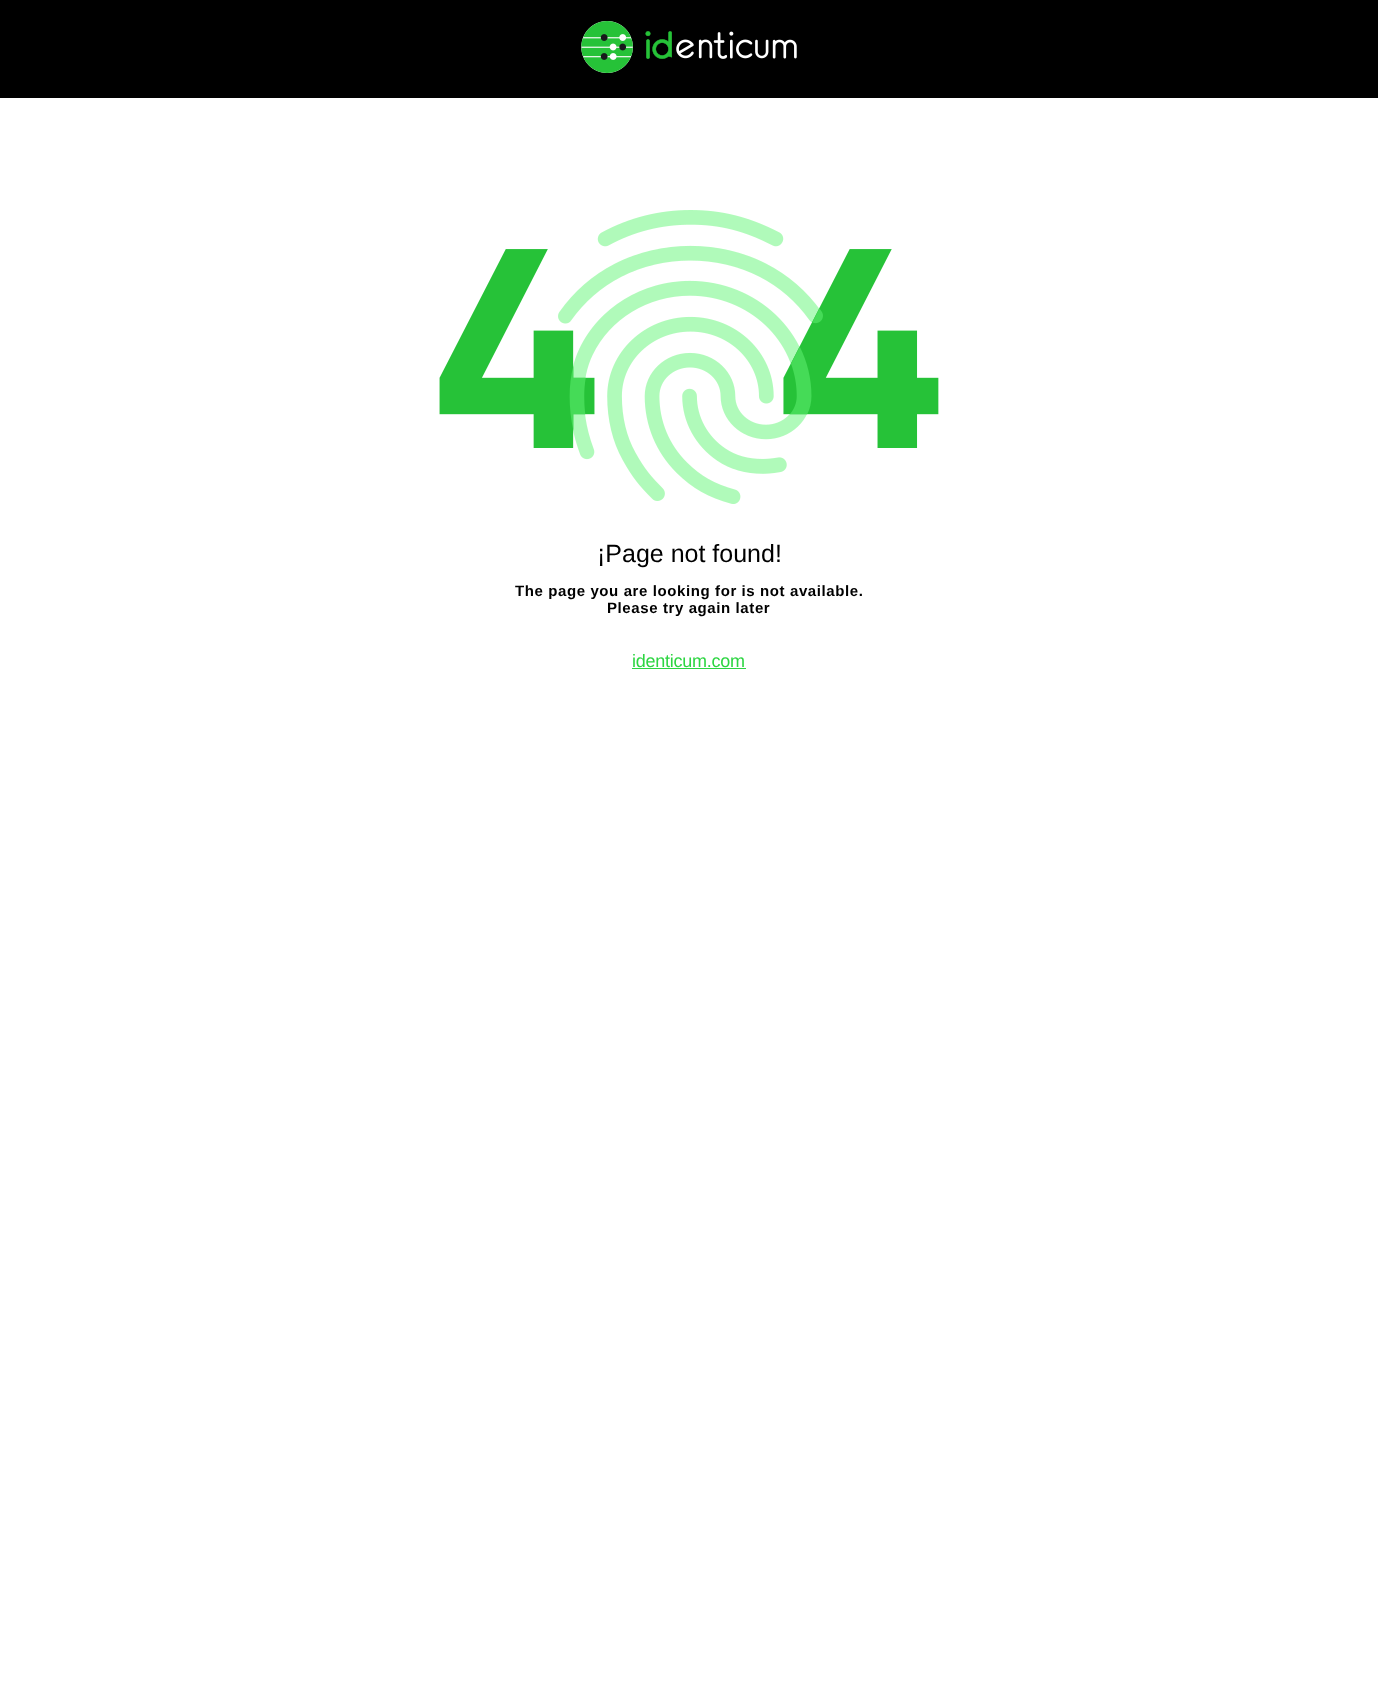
(async () => {
    const canvas = document.querySelector("canvas");
    canvas.width = 1378;
    canvas.height = 1683;
    const context = canvas.getContext("2d");
    context.miterLimit = 4;
    context.fontKerning = "normal";
    function write(s, x, y, font, color) {
        context.font = font;
        context.fillStyle = color;
        context.fillText(s, x, y);
    }
    function block(x, y, w, h, color) {
        context.fillStyle = color;
        context.fillRect(x, y, w, h);
    }
    async function photo(src, x, y, w, h) {
        const img = new Image();
        img.src = src;
        await img.decode();
        context.drawImage(img, x, y, w, h);
    }

    block(0, 0, 1378, 1683, "rgb(255, 255, 255)");
    block(0, 0, 1378, 98, "rgb(0, 0, 0)");
    await photo("media/1.png", 581, 21, 216, 52);
    await photo("media/2.png", 439, 210, 500, 294);
    write("¡Page not found!", 597, 562, "25px Liberation Sans", "rgb(0, 0, 0)");
    context.letterSpacing = "0.6px";
    write("The page you are looking for is not available.", 515, 596, "bold 15px Liberation Sans", "rgb(0, 0, 0)");
    write("Please try again later", 607, 613, "bold 15px Liberation Sans", "rgb(0, 0, 0)");
    context.letterSpacing = "-0.25px";
    write("identicum.com", 632, 667, "18px Liberation Sans", "rgb(45, 213, 66)");
    block(632, 668, 114, 1, "rgb(45, 213, 66)");
})();
